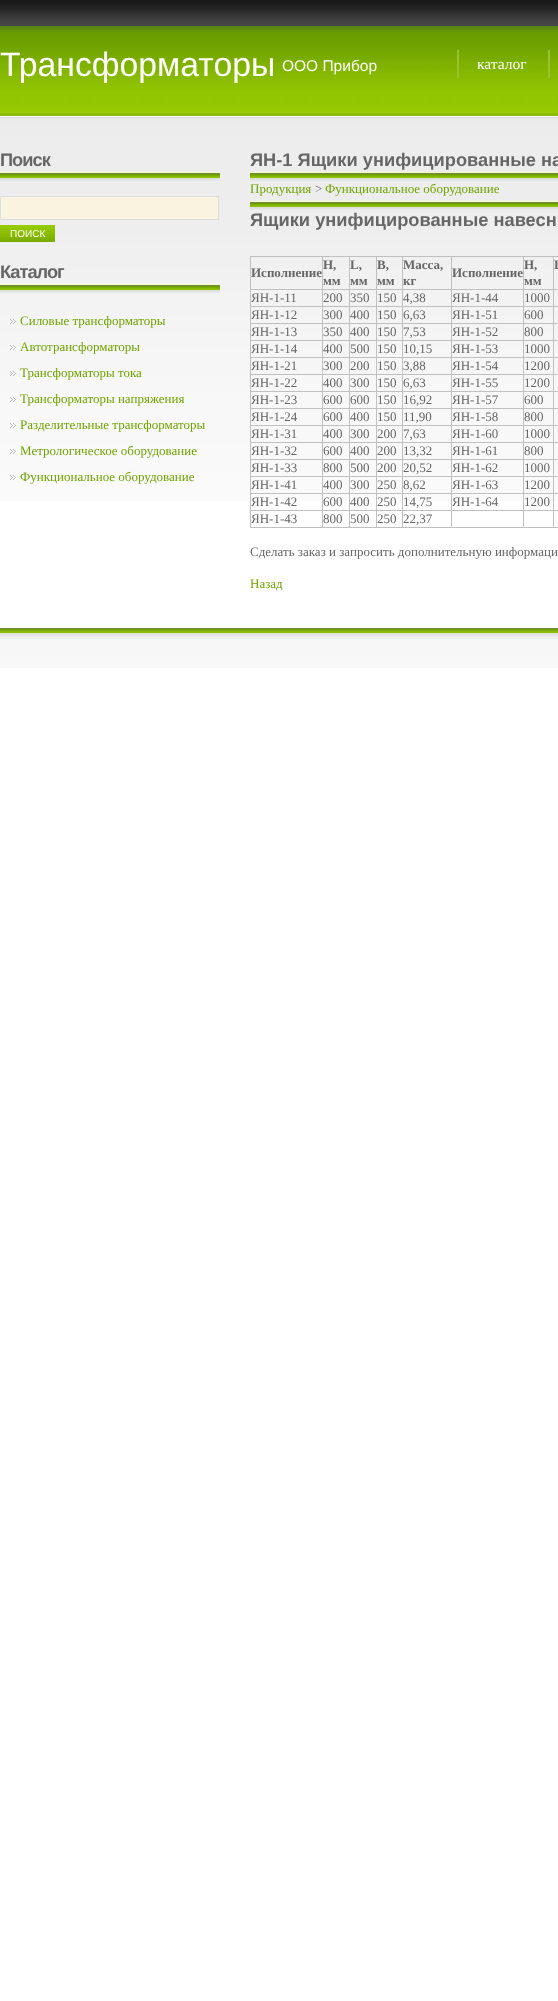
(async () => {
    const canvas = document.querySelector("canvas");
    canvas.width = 558;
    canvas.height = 2001;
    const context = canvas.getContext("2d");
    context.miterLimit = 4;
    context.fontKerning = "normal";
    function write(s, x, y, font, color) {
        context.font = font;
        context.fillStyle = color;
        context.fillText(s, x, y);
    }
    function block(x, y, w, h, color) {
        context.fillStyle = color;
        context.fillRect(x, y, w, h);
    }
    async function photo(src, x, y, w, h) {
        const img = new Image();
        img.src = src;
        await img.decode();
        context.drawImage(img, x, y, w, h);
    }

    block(0, 0, 558, 2001, "rgb(255, 255, 255)");
    await photo("media/1.png", 0, 0, 558, 501);
    write("Трансформаторы", 0, 76, "33.75px Liberation Sans", "rgb(255, 255, 255)");
    write("ООО Прибор", 282, 71, "15.5px Liberation Sans", "rgb(255, 255, 255)");
    block(457, 50, 2, 28, "rgb(153, 194, 51)");
    write("каталог", 477, 69, "15.5px Liberation Serif", "rgb(255, 255, 255)");
    block(548, 50, 2, 28, "rgb(153, 194, 51)");
    await photo("media/2.png", 0, 172, 220, 9);
    context.letterSpacing = "-1px";
    write("Поиск", 0, 166, "bold 18.25px Liberation Sans", "rgb(102, 102, 102)");
    context.fillStyle = "rgb(249, 243, 223)";
    context.beginPath();
    context.rect(0.5, 196.5, 218, 23);
    context.fill();
    context.strokeStyle = "rgb(222, 222, 222)";
    context.stroke();
    await photo("media/3.png", 0, 225, 55, 17);
    context.letterSpacing = "0px";
    write("ПОИСК", 10, 237, "10px Liberation Sans", "rgb(255, 255, 255)");
    await photo("media/2.png", 0, 284, 220, 9);
    context.letterSpacing = "-1px";
    write("Каталог", 0, 278, "bold 18.25px Liberation Sans", "rgb(102, 102, 102)");
    await photo("media/4.png", 10, 319, 6, 5);
    context.letterSpacing = "0px";
    write("Силовые трансформаторы", 20, 325, "13px Liberation Serif", "rgb(112, 163, 0)");
    await photo("media/5.png", 10, 345, 6, 5);
    write("Автотрансформаторы", 20, 351, "13px Liberation Serif", "rgb(112, 163, 0)");
    await photo("media/6.png", 10, 371, 6, 5);
    write("Трансформаторы тока", 20, 377, "13px Liberation Serif", "rgb(112, 163, 0)");
    await photo("media/7.png", 10, 397, 6, 5);
    write("Трансформаторы напряжения", 20, 403, "13px Liberation Serif", "rgb(112, 163, 0)");
    await photo("media/7.png", 10, 423, 6, 5);
    write("Разделительные трансформаторы", 20, 429, "13px Liberation Serif", "rgb(112, 163, 0)");
    await photo("media/8.png", 10, 449, 6, 5);
    write("Метрологическое оборудование", 20, 455, "13px Liberation Serif", "rgb(112, 163, 0)");
    await photo("media/9.png", 10, 475, 6, 5);
    write("Функциональное оборудование", 20, 481, "13px Liberation Serif", "rgb(112, 163, 0)");
    await photo("media/10.png", 250, 172, 308, 9);
    write("ЯН-1 Ящики унифицированные на", 250, 166, "bold 18.25px Liberation Sans", "rgb(102, 102, 102)");
    write("Продукция", 250, 193, "13px Liberation Serif", "rgb(112, 163, 0)");
    write(">", 315, 193, "13px Liberation Serif", "rgb(102, 102, 102)");
    write("Функциональное оборудование", 325, 193, "13px Liberation Serif", "rgb(112, 163, 0)");
    await photo("media/10.png", 250, 201, 308, 9);
    write("Ящики унифицированные навесн", 250, 226, "bold 18.25px Liberation Sans", "rgb(102, 102, 102)");
    block(250, 256, 308, 1, "rgb(192, 192, 192)");
    block(250, 527, 308, 1, "rgb(192, 192, 192)");
    block(250, 256, 1, 272, "rgb(192, 192, 192)");
    block(553, 289, 5, 1, "rgb(192, 192, 192)");
    block(553, 306, 5, 1, "rgb(192, 192, 192)");
    block(553, 323, 5, 1, "rgb(192, 192, 192)");
    block(553, 340, 5, 1, "rgb(192, 192, 192)");
    block(553, 357, 5, 1, "rgb(192, 192, 192)");
    block(553, 374, 5, 1, "rgb(192, 192, 192)");
    block(553, 391, 5, 1, "rgb(192, 192, 192)");
    block(553, 408, 5, 1, "rgb(192, 192, 192)");
    block(553, 425, 5, 1, "rgb(192, 192, 192)");
    block(553, 442, 5, 1, "rgb(192, 192, 192)");
    block(553, 459, 5, 1, "rgb(192, 192, 192)");
    block(553, 476, 5, 1, "rgb(192, 192, 192)");
    block(553, 493, 5, 1, "rgb(192, 192, 192)");
    block(553, 510, 5, 1, "rgb(192, 192, 192)");
    block(553, 510, 1, 18, "rgb(192, 192, 192)");
    block(523, 510, 31, 1, "rgb(192, 192, 192)");
    block(553, 493, 1, 18, "rgb(192, 192, 192)");
    block(523, 493, 31, 1, "rgb(192, 192, 192)");
    block(553, 476, 1, 18, "rgb(192, 192, 192)");
    block(523, 476, 31, 1, "rgb(192, 192, 192)");
    block(553, 459, 1, 18, "rgb(192, 192, 192)");
    block(523, 459, 31, 1, "rgb(192, 192, 192)");
    block(553, 442, 1, 18, "rgb(192, 192, 192)");
    block(523, 442, 31, 1, "rgb(192, 192, 192)");
    block(553, 425, 1, 18, "rgb(192, 192, 192)");
    block(523, 425, 31, 1, "rgb(192, 192, 192)");
    block(553, 408, 1, 18, "rgb(192, 192, 192)");
    block(523, 408, 31, 1, "rgb(192, 192, 192)");
    block(553, 391, 1, 18, "rgb(192, 192, 192)");
    block(523, 391, 31, 1, "rgb(192, 192, 192)");
    block(553, 374, 1, 18, "rgb(192, 192, 192)");
    block(523, 374, 31, 1, "rgb(192, 192, 192)");
    block(553, 357, 1, 18, "rgb(192, 192, 192)");
    block(523, 357, 31, 1, "rgb(192, 192, 192)");
    block(553, 340, 1, 18, "rgb(192, 192, 192)");
    block(523, 340, 31, 1, "rgb(192, 192, 192)");
    block(553, 323, 1, 18, "rgb(192, 192, 192)");
    block(523, 323, 31, 1, "rgb(192, 192, 192)");
    block(553, 306, 1, 18, "rgb(192, 192, 192)");
    block(523, 306, 31, 1, "rgb(192, 192, 192)");
    block(553, 289, 1, 18, "rgb(192, 192, 192)");
    block(523, 289, 31, 1, "rgb(192, 192, 192)");
    block(523, 510, 1, 18, "rgb(192, 192, 192)");
    block(451, 510, 73, 1, "rgb(192, 192, 192)");
    block(523, 493, 1, 18, "rgb(192, 192, 192)");
    block(451, 493, 73, 1, "rgb(192, 192, 192)");
    block(523, 476, 1, 18, "rgb(192, 192, 192)");
    block(451, 476, 73, 1, "rgb(192, 192, 192)");
    block(523, 459, 1, 18, "rgb(192, 192, 192)");
    block(451, 459, 73, 1, "rgb(192, 192, 192)");
    block(523, 442, 1, 18, "rgb(192, 192, 192)");
    block(451, 442, 73, 1, "rgb(192, 192, 192)");
    block(523, 425, 1, 18, "rgb(192, 192, 192)");
    block(451, 425, 73, 1, "rgb(192, 192, 192)");
    block(523, 408, 1, 18, "rgb(192, 192, 192)");
    block(451, 408, 73, 1, "rgb(192, 192, 192)");
    block(523, 391, 1, 18, "rgb(192, 192, 192)");
    block(451, 391, 73, 1, "rgb(192, 192, 192)");
    block(523, 374, 1, 18, "rgb(192, 192, 192)");
    block(451, 374, 73, 1, "rgb(192, 192, 192)");
    block(523, 357, 1, 18, "rgb(192, 192, 192)");
    block(451, 357, 73, 1, "rgb(192, 192, 192)");
    block(523, 340, 1, 18, "rgb(192, 192, 192)");
    block(451, 340, 73, 1, "rgb(192, 192, 192)");
    block(523, 323, 1, 18, "rgb(192, 192, 192)");
    block(451, 323, 73, 1, "rgb(192, 192, 192)");
    block(523, 306, 1, 18, "rgb(192, 192, 192)");
    block(451, 306, 73, 1, "rgb(192, 192, 192)");
    block(523, 289, 1, 18, "rgb(192, 192, 192)");
    block(451, 289, 73, 1, "rgb(192, 192, 192)");
    block(451, 510, 1, 18, "rgb(192, 192, 192)");
    block(402, 510, 50, 1, "rgb(192, 192, 192)");
    block(451, 493, 1, 18, "rgb(192, 192, 192)");
    block(402, 493, 50, 1, "rgb(192, 192, 192)");
    block(451, 476, 1, 18, "rgb(192, 192, 192)");
    block(402, 476, 50, 1, "rgb(192, 192, 192)");
    block(451, 459, 1, 18, "rgb(192, 192, 192)");
    block(402, 459, 50, 1, "rgb(192, 192, 192)");
    block(451, 442, 1, 18, "rgb(192, 192, 192)");
    block(402, 442, 50, 1, "rgb(192, 192, 192)");
    block(451, 425, 1, 18, "rgb(192, 192, 192)");
    block(402, 425, 50, 1, "rgb(192, 192, 192)");
    block(451, 408, 1, 18, "rgb(192, 192, 192)");
    block(402, 408, 50, 1, "rgb(192, 192, 192)");
    block(451, 391, 1, 18, "rgb(192, 192, 192)");
    block(402, 391, 50, 1, "rgb(192, 192, 192)");
    block(451, 374, 1, 18, "rgb(192, 192, 192)");
    block(402, 374, 50, 1, "rgb(192, 192, 192)");
    block(451, 357, 1, 18, "rgb(192, 192, 192)");
    block(402, 357, 50, 1, "rgb(192, 192, 192)");
    block(451, 340, 1, 18, "rgb(192, 192, 192)");
    block(402, 340, 50, 1, "rgb(192, 192, 192)");
    block(451, 323, 1, 18, "rgb(192, 192, 192)");
    block(402, 323, 50, 1, "rgb(192, 192, 192)");
    block(451, 306, 1, 18, "rgb(192, 192, 192)");
    block(402, 306, 50, 1, "rgb(192, 192, 192)");
    block(451, 289, 1, 18, "rgb(192, 192, 192)");
    block(402, 289, 50, 1, "rgb(192, 192, 192)");
    block(402, 510, 1, 18, "rgb(192, 192, 192)");
    block(376, 510, 27, 1, "rgb(192, 192, 192)");
    block(402, 493, 1, 18, "rgb(192, 192, 192)");
    block(376, 493, 27, 1, "rgb(192, 192, 192)");
    block(402, 476, 1, 18, "rgb(192, 192, 192)");
    block(376, 476, 27, 1, "rgb(192, 192, 192)");
    block(402, 459, 1, 18, "rgb(192, 192, 192)");
    block(376, 459, 27, 1, "rgb(192, 192, 192)");
    block(402, 442, 1, 18, "rgb(192, 192, 192)");
    block(376, 442, 27, 1, "rgb(192, 192, 192)");
    block(402, 425, 1, 18, "rgb(192, 192, 192)");
    block(376, 425, 27, 1, "rgb(192, 192, 192)");
    block(402, 408, 1, 18, "rgb(192, 192, 192)");
    block(376, 408, 27, 1, "rgb(192, 192, 192)");
    block(402, 391, 1, 18, "rgb(192, 192, 192)");
    block(376, 391, 27, 1, "rgb(192, 192, 192)");
    block(402, 374, 1, 18, "rgb(192, 192, 192)");
    block(376, 374, 27, 1, "rgb(192, 192, 192)");
    block(402, 357, 1, 18, "rgb(192, 192, 192)");
    block(376, 357, 27, 1, "rgb(192, 192, 192)");
    block(402, 340, 1, 18, "rgb(192, 192, 192)");
    block(376, 340, 27, 1, "rgb(192, 192, 192)");
    block(402, 323, 1, 18, "rgb(192, 192, 192)");
    block(376, 323, 27, 1, "rgb(192, 192, 192)");
    block(402, 306, 1, 18, "rgb(192, 192, 192)");
    block(376, 306, 27, 1, "rgb(192, 192, 192)");
    block(402, 289, 1, 18, "rgb(192, 192, 192)");
    block(376, 289, 27, 1, "rgb(192, 192, 192)");
    block(376, 510, 1, 18, "rgb(192, 192, 192)");
    block(349, 510, 28, 1, "rgb(192, 192, 192)");
    block(376, 493, 1, 18, "rgb(192, 192, 192)");
    block(349, 493, 28, 1, "rgb(192, 192, 192)");
    block(376, 476, 1, 18, "rgb(192, 192, 192)");
    block(349, 476, 28, 1, "rgb(192, 192, 192)");
    block(376, 459, 1, 18, "rgb(192, 192, 192)");
    block(349, 459, 28, 1, "rgb(192, 192, 192)");
    block(376, 442, 1, 18, "rgb(192, 192, 192)");
    block(349, 442, 28, 1, "rgb(192, 192, 192)");
    block(376, 425, 1, 18, "rgb(192, 192, 192)");
    block(349, 425, 28, 1, "rgb(192, 192, 192)");
    block(376, 408, 1, 18, "rgb(192, 192, 192)");
    block(349, 408, 28, 1, "rgb(192, 192, 192)");
    block(376, 391, 1, 18, "rgb(192, 192, 192)");
    block(349, 391, 28, 1, "rgb(192, 192, 192)");
    block(376, 374, 1, 18, "rgb(192, 192, 192)");
    block(349, 374, 28, 1, "rgb(192, 192, 192)");
    block(376, 357, 1, 18, "rgb(192, 192, 192)");
    block(349, 357, 28, 1, "rgb(192, 192, 192)");
    block(376, 340, 1, 18, "rgb(192, 192, 192)");
    block(349, 340, 28, 1, "rgb(192, 192, 192)");
    block(376, 323, 1, 18, "rgb(192, 192, 192)");
    block(349, 323, 28, 1, "rgb(192, 192, 192)");
    block(376, 306, 1, 18, "rgb(192, 192, 192)");
    block(349, 306, 28, 1, "rgb(192, 192, 192)");
    block(376, 289, 1, 18, "rgb(192, 192, 192)");
    block(349, 289, 28, 1, "rgb(192, 192, 192)");
    block(349, 510, 1, 18, "rgb(192, 192, 192)");
    block(322, 510, 28, 1, "rgb(192, 192, 192)");
    block(349, 493, 1, 18, "rgb(192, 192, 192)");
    block(322, 493, 28, 1, "rgb(192, 192, 192)");
    block(349, 476, 1, 18, "rgb(192, 192, 192)");
    block(322, 476, 28, 1, "rgb(192, 192, 192)");
    block(349, 459, 1, 18, "rgb(192, 192, 192)");
    block(322, 459, 28, 1, "rgb(192, 192, 192)");
    block(349, 442, 1, 18, "rgb(192, 192, 192)");
    block(322, 442, 28, 1, "rgb(192, 192, 192)");
    block(349, 425, 1, 18, "rgb(192, 192, 192)");
    block(322, 425, 28, 1, "rgb(192, 192, 192)");
    block(349, 408, 1, 18, "rgb(192, 192, 192)");
    block(322, 408, 28, 1, "rgb(192, 192, 192)");
    block(349, 391, 1, 18, "rgb(192, 192, 192)");
    block(322, 391, 28, 1, "rgb(192, 192, 192)");
    block(349, 374, 1, 18, "rgb(192, 192, 192)");
    block(322, 374, 28, 1, "rgb(192, 192, 192)");
    block(349, 357, 1, 18, "rgb(192, 192, 192)");
    block(322, 357, 28, 1, "rgb(192, 192, 192)");
    block(349, 340, 1, 18, "rgb(192, 192, 192)");
    block(322, 340, 28, 1, "rgb(192, 192, 192)");
    block(349, 323, 1, 18, "rgb(192, 192, 192)");
    block(322, 323, 28, 1, "rgb(192, 192, 192)");
    block(349, 306, 1, 18, "rgb(192, 192, 192)");
    block(322, 306, 28, 1, "rgb(192, 192, 192)");
    block(349, 289, 1, 18, "rgb(192, 192, 192)");
    block(322, 289, 28, 1, "rgb(192, 192, 192)");
    block(322, 510, 1, 18, "rgb(192, 192, 192)");
    block(250, 510, 73, 1, "rgb(192, 192, 192)");
    block(322, 493, 1, 18, "rgb(192, 192, 192)");
    block(250, 493, 73, 1, "rgb(192, 192, 192)");
    block(322, 476, 1, 18, "rgb(192, 192, 192)");
    block(250, 476, 73, 1, "rgb(192, 192, 192)");
    block(322, 459, 1, 18, "rgb(192, 192, 192)");
    block(250, 459, 73, 1, "rgb(192, 192, 192)");
    block(322, 442, 1, 18, "rgb(192, 192, 192)");
    block(250, 442, 73, 1, "rgb(192, 192, 192)");
    block(322, 425, 1, 18, "rgb(192, 192, 192)");
    block(250, 425, 73, 1, "rgb(192, 192, 192)");
    block(322, 408, 1, 18, "rgb(192, 192, 192)");
    block(250, 408, 73, 1, "rgb(192, 192, 192)");
    block(322, 391, 1, 18, "rgb(192, 192, 192)");
    block(250, 391, 73, 1, "rgb(192, 192, 192)");
    block(322, 374, 1, 18, "rgb(192, 192, 192)");
    block(250, 374, 73, 1, "rgb(192, 192, 192)");
    block(322, 357, 1, 18, "rgb(192, 192, 192)");
    block(250, 357, 73, 1, "rgb(192, 192, 192)");
    block(322, 340, 1, 18, "rgb(192, 192, 192)");
    block(250, 340, 73, 1, "rgb(192, 192, 192)");
    block(322, 323, 1, 18, "rgb(192, 192, 192)");
    block(250, 323, 73, 1, "rgb(192, 192, 192)");
    block(322, 306, 1, 18, "rgb(192, 192, 192)");
    block(250, 306, 73, 1, "rgb(192, 192, 192)");
    block(322, 289, 1, 18, "rgb(192, 192, 192)");
    block(250, 289, 73, 1, "rgb(192, 192, 192)");
    block(322, 256, 1, 34, "rgb(192, 192, 192)");
    write("H,", 323, 269, "bold 13px Liberation Serif", "rgb(102, 102, 102)");
    write("мм", 323, 285, "bold 13px Liberation Serif", "rgb(102, 102, 102)");
    block(349, 256, 1, 34, "rgb(192, 192, 192)");
    write("L,", 350, 269, "bold 13px Liberation Serif", "rgb(102, 102, 102)");
    write("мм", 350, 285, "bold 13px Liberation Serif", "rgb(102, 102, 102)");
    block(376, 256, 1, 34, "rgb(192, 192, 192)");
    write("B,", 377, 269, "bold 13px Liberation Serif", "rgb(102, 102, 102)");
    write("мм", 377, 285, "bold 13px Liberation Serif", "rgb(102, 102, 102)");
    block(402, 256, 1, 34, "rgb(192, 192, 192)");
    write("Масса,", 403, 269, "bold 13px Liberation Serif", "rgb(102, 102, 102)");
    write("кг", 403, 285, "bold 13px Liberation Serif", "rgb(102, 102, 102)");
    block(523, 256, 1, 34, "rgb(192, 192, 192)");
    write("H,", 524, 269, "bold 13px Liberation Serif", "rgb(102, 102, 102)");
    write("мм", 524, 285, "bold 13px Liberation Serif", "rgb(102, 102, 102)");
    block(553, 256, 1, 34, "rgb(192, 192, 192)");
    write("L", 554, 269, "bold 13px Liberation Serif", "rgb(102, 102, 102)");
    write("Исполнение", 251, 277, "bold 13px Liberation Serif", "rgb(102, 102, 102)");
    block(451, 256, 1, 34, "rgb(192, 192, 192)");
    write("Исполнение", 452, 277, "bold 13px Liberation Serif", "rgb(102, 102, 102)");
    write("ЯН-1-11", 251, 302, "13px Liberation Serif", "rgb(102, 102, 102)");
    write("200", 323, 302, "13px Liberation Serif", "rgb(102, 102, 102)");
    write("350", 350, 302, "13px Liberation Serif", "rgb(102, 102, 102)");
    write("150", 377, 302, "13px Liberation Serif", "rgb(102, 102, 102)");
    write("4,38", 403, 302, "13px Liberation Serif", "rgb(102, 102, 102)");
    write("ЯН-1-44", 452, 302, "13px Liberation Serif", "rgb(102, 102, 102)");
    write("1000", 524, 302, "13px Liberation Serif", "rgb(102, 102, 102)");
    write("ЯН-1-12", 251, 319, "13px Liberation Serif", "rgb(102, 102, 102)");
    write("300", 323, 319, "13px Liberation Serif", "rgb(102, 102, 102)");
    write("400", 350, 319, "13px Liberation Serif", "rgb(102, 102, 102)");
    write("150", 377, 319, "13px Liberation Serif", "rgb(102, 102, 102)");
    write("6,63", 403, 319, "13px Liberation Serif", "rgb(102, 102, 102)");
    write("ЯН-1-51", 452, 319, "13px Liberation Serif", "rgb(102, 102, 102)");
    write("600", 524, 319, "13px Liberation Serif", "rgb(102, 102, 102)");
    write("ЯН-1-13", 251, 336, "13px Liberation Serif", "rgb(102, 102, 102)");
    write("350", 323, 336, "13px Liberation Serif", "rgb(102, 102, 102)");
    write("400", 350, 336, "13px Liberation Serif", "rgb(102, 102, 102)");
    write("150", 377, 336, "13px Liberation Serif", "rgb(102, 102, 102)");
    write("7,53", 403, 336, "13px Liberation Serif", "rgb(102, 102, 102)");
    write("ЯН-1-52", 452, 336, "13px Liberation Serif", "rgb(102, 102, 102)");
    write("800", 524, 336, "13px Liberation Serif", "rgb(102, 102, 102)");
    write("ЯН-1-14", 251, 353, "13px Liberation Serif", "rgb(102, 102, 102)");
    write("400", 323, 353, "13px Liberation Serif", "rgb(102, 102, 102)");
    write("500", 350, 353, "13px Liberation Serif", "rgb(102, 102, 102)");
    write("150", 377, 353, "13px Liberation Serif", "rgb(102, 102, 102)");
    write("10,15", 403, 353, "13px Liberation Serif", "rgb(102, 102, 102)");
    write("ЯН-1-53", 452, 353, "13px Liberation Serif", "rgb(102, 102, 102)");
    write("1000", 524, 353, "13px Liberation Serif", "rgb(102, 102, 102)");
    write("ЯН-1-21", 251, 370, "13px Liberation Serif", "rgb(102, 102, 102)");
    write("300", 323, 370, "13px Liberation Serif", "rgb(102, 102, 102)");
    write("200", 350, 370, "13px Liberation Serif", "rgb(102, 102, 102)");
    write("150", 377, 370, "13px Liberation Serif", "rgb(102, 102, 102)");
    write("3,88", 403, 370, "13px Liberation Serif", "rgb(102, 102, 102)");
    write("ЯН-1-54", 452, 370, "13px Liberation Serif", "rgb(102, 102, 102)");
    write("1200", 524, 370, "13px Liberation Serif", "rgb(102, 102, 102)");
    write("ЯН-1-22", 251, 387, "13px Liberation Serif", "rgb(102, 102, 102)");
    write("400", 323, 387, "13px Liberation Serif", "rgb(102, 102, 102)");
    write("300", 350, 387, "13px Liberation Serif", "rgb(102, 102, 102)");
    write("150", 377, 387, "13px Liberation Serif", "rgb(102, 102, 102)");
    write("6,63", 403, 387, "13px Liberation Serif", "rgb(102, 102, 102)");
    write("ЯН-1-55", 452, 387, "13px Liberation Serif", "rgb(102, 102, 102)");
    write("1200", 524, 387, "13px Liberation Serif", "rgb(102, 102, 102)");
    write("ЯН-1-23", 251, 404, "13px Liberation Serif", "rgb(102, 102, 102)");
    write("600", 323, 404, "13px Liberation Serif", "rgb(102, 102, 102)");
    write("600", 350, 404, "13px Liberation Serif", "rgb(102, 102, 102)");
    write("150", 377, 404, "13px Liberation Serif", "rgb(102, 102, 102)");
    write("16,92", 403, 404, "13px Liberation Serif", "rgb(102, 102, 102)");
    write("ЯН-1-57", 452, 404, "13px Liberation Serif", "rgb(102, 102, 102)");
    write("600", 524, 404, "13px Liberation Serif", "rgb(102, 102, 102)");
    write("ЯН-1-24", 251, 421, "13px Liberation Serif", "rgb(102, 102, 102)");
    write("600", 323, 421, "13px Liberation Serif", "rgb(102, 102, 102)");
    write("400", 350, 421, "13px Liberation Serif", "rgb(102, 102, 102)");
    write("150", 377, 421, "13px Liberation Serif", "rgb(102, 102, 102)");
    write("11,90", 403, 421, "13px Liberation Serif", "rgb(102, 102, 102)");
    write("ЯН-1-58", 452, 421, "13px Liberation Serif", "rgb(102, 102, 102)");
    write("800", 524, 421, "13px Liberation Serif", "rgb(102, 102, 102)");
    write("ЯН-1-31", 251, 438, "13px Liberation Serif", "rgb(102, 102, 102)");
    write("400", 323, 438, "13px Liberation Serif", "rgb(102, 102, 102)");
    write("300", 350, 438, "13px Liberation Serif", "rgb(102, 102, 102)");
    write("200", 377, 438, "13px Liberation Serif", "rgb(102, 102, 102)");
    write("7,63", 403, 438, "13px Liberation Serif", "rgb(102, 102, 102)");
    write("ЯН-1-60", 452, 438, "13px Liberation Serif", "rgb(102, 102, 102)");
    write("1000", 524, 438, "13px Liberation Serif", "rgb(102, 102, 102)");
    write("ЯН-1-32", 251, 455, "13px Liberation Serif", "rgb(102, 102, 102)");
    write("600", 323, 455, "13px Liberation Serif", "rgb(102, 102, 102)");
    write("400", 350, 455, "13px Liberation Serif", "rgb(102, 102, 102)");
    write("200", 377, 455, "13px Liberation Serif", "rgb(102, 102, 102)");
    write("13,32", 403, 455, "13px Liberation Serif", "rgb(102, 102, 102)");
    write("ЯН-1-61", 452, 455, "13px Liberation Serif", "rgb(102, 102, 102)");
    write("800", 524, 455, "13px Liberation Serif", "rgb(102, 102, 102)");
    write("ЯН-1-33", 251, 472, "13px Liberation Serif", "rgb(102, 102, 102)");
    write("800", 323, 472, "13px Liberation Serif", "rgb(102, 102, 102)");
    write("500", 350, 472, "13px Liberation Serif", "rgb(102, 102, 102)");
    write("200", 377, 472, "13px Liberation Serif", "rgb(102, 102, 102)");
    write("20,52", 403, 472, "13px Liberation Serif", "rgb(102, 102, 102)");
    write("ЯН-1-62", 452, 472, "13px Liberation Serif", "rgb(102, 102, 102)");
    write("1000", 524, 472, "13px Liberation Serif", "rgb(102, 102, 102)");
    write("ЯН-1-41", 251, 489, "13px Liberation Serif", "rgb(102, 102, 102)");
    write("400", 323, 489, "13px Liberation Serif", "rgb(102, 102, 102)");
    write("300", 350, 489, "13px Liberation Serif", "rgb(102, 102, 102)");
    write("250", 377, 489, "13px Liberation Serif", "rgb(102, 102, 102)");
    write("8,62", 403, 489, "13px Liberation Serif", "rgb(102, 102, 102)");
    write("ЯН-1-63", 452, 489, "13px Liberation Serif", "rgb(102, 102, 102)");
    write("1200", 524, 489, "13px Liberation Serif", "rgb(102, 102, 102)");
    write("ЯН-1-42", 251, 506, "13px Liberation Serif", "rgb(102, 102, 102)");
    write("600", 323, 506, "13px Liberation Serif", "rgb(102, 102, 102)");
    write("400", 350, 506, "13px Liberation Serif", "rgb(102, 102, 102)");
    write("250", 377, 506, "13px Liberation Serif", "rgb(102, 102, 102)");
    write("14,75", 403, 506, "13px Liberation Serif", "rgb(102, 102, 102)");
    write("ЯН-1-64", 452, 506, "13px Liberation Serif", "rgb(102, 102, 102)");
    write("1200", 524, 506, "13px Liberation Serif", "rgb(102, 102, 102)");
    write("ЯН-1-43", 251, 523, "13px Liberation Serif", "rgb(102, 102, 102)");
    write("800", 323, 523, "13px Liberation Serif", "rgb(102, 102, 102)");
    write("500", 350, 523, "13px Liberation Serif", "rgb(102, 102, 102)");
    write("250", 377, 523, "13px Liberation Serif", "rgb(102, 102, 102)");
    write("22,37", 403, 523, "13px Liberation Serif", "rgb(102, 102, 102)");
    write("Сделать заказ и запросить дополнительную информаци", 250, 556, "13px Liberation Serif", "rgb(102, 102, 102)");
    write("Назад", 250, 588, "13px Liberation Serif", "rgb(112, 163, 0)");
    await photo("media/11.png", 0, 628, 558, 40);
})();
